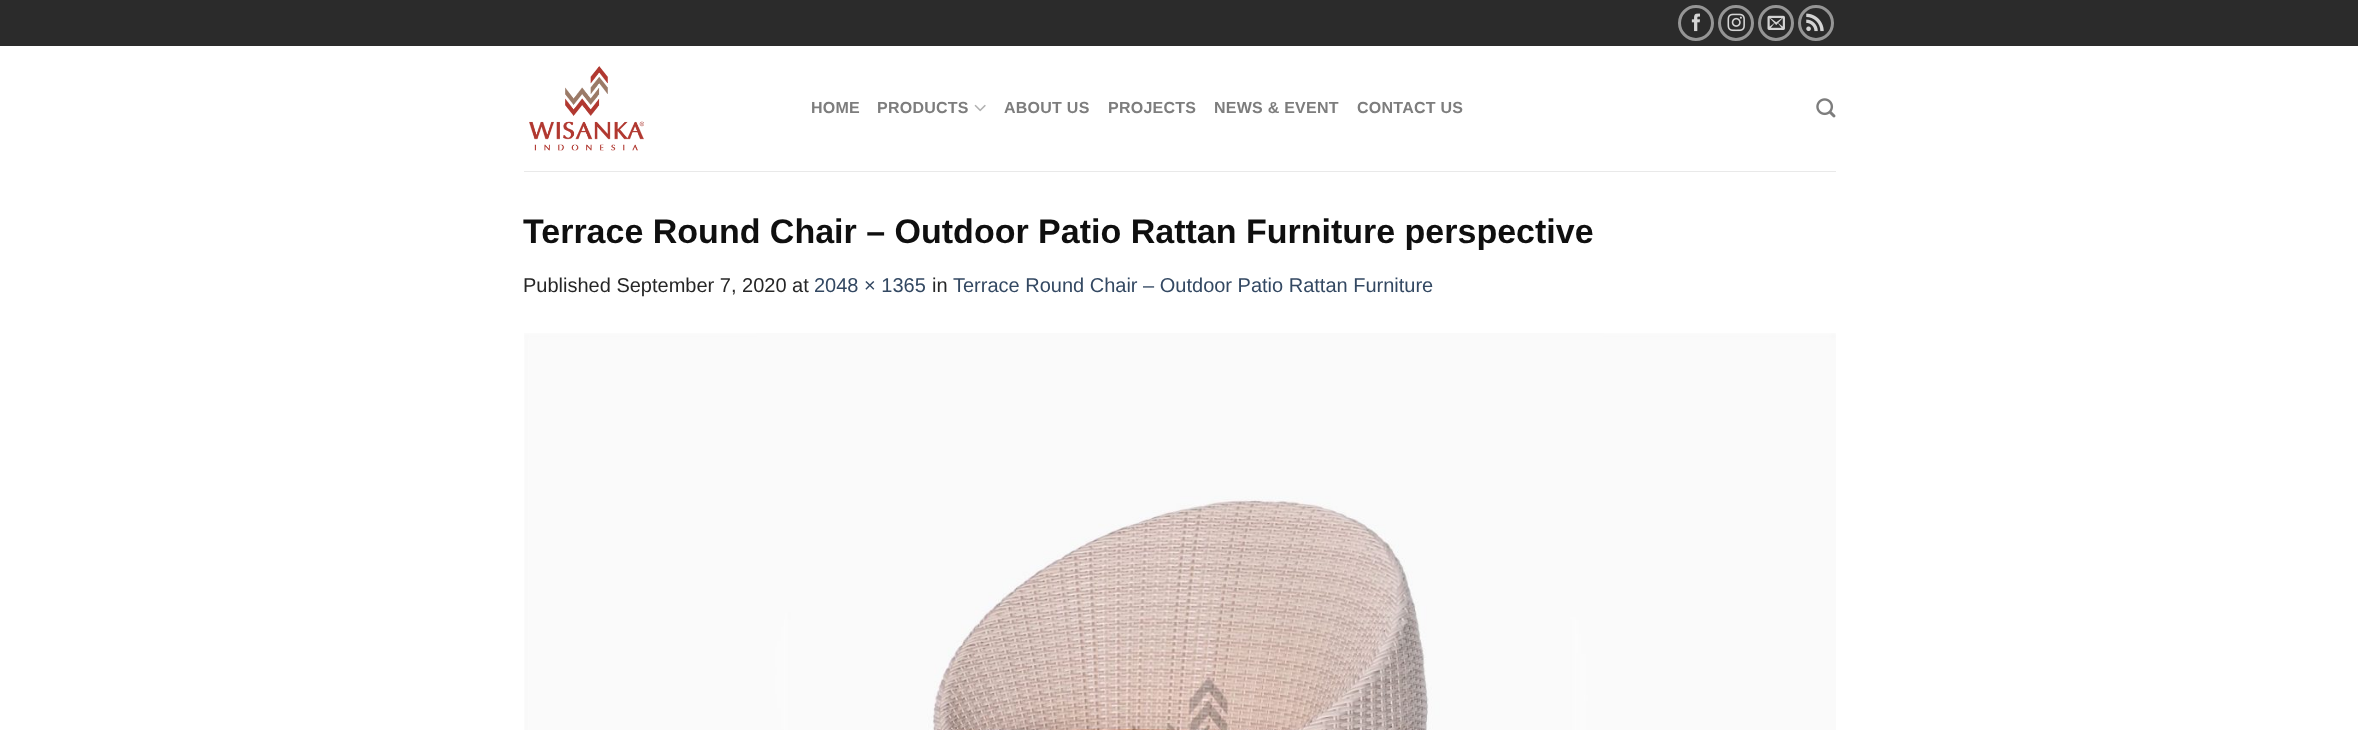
(async () => {
    const canvas = document.querySelector("canvas");
    canvas.width = 2358;
    canvas.height = 730;
    const context = canvas.getContext("2d");
    context.miterLimit = 4;
    context.fontKerning = "normal";
    function write(s, x, y, font, color) {
        context.font = font;
        context.fillStyle = color;
        context.fillText(s, x, y);
    }
    function block(x, y, w, h, color) {
        context.fillStyle = color;
        context.fillRect(x, y, w, h);
    }
    async function photo(src, x, y, w, h) {
        const img = new Image();
        img.src = src;
        await img.decode();
        context.drawImage(img, x, y, w, h);
    }

    block(0, 0, 2358, 730, "rgb(255, 255, 255)");
    block(0, 0, 2358, 46, "rgb(43, 43, 43)");
    context.beginPath();
    context.arc(1696, 23, 16.5, 0, Math.PI * 2);
    context.strokeStyle = "rgb(149, 149, 149)";
    context.lineWidth = 3;
    context.stroke();
    await photo("media/1.png", 1691, 13, 9, 19);
    context.beginPath();
    context.arc(1736, 23, 16.5, 0, Math.PI * 2);
    context.stroke();
    await photo("media/2.png", 1727, 13, 18, 19);
    context.beginPath();
    context.arc(1776, 23, 16.5, 0, Math.PI * 2);
    context.stroke();
    await photo("media/3.png", 1767, 15, 18, 15);
    context.beginPath();
    context.arc(1816, 23, 16.5, 0, Math.PI * 2);
    context.stroke();
    await photo("media/4.png", 1806, 13, 18, 19);
    await photo("media/5.png", 529, 66, 115, 85);
    context.letterSpacing = "0.25px";
    write("HOME", 811, 113, "bold 16px Liberation Sans", "rgb(125, 125, 125)");
    write("PRODUCTS", 877, 113, "bold 16px Liberation Sans", "rgb(125, 125, 125)");
    await photo("media/6.png", 974, 104, 12, 8);
    write("ABOUT US", 1004, 113, "bold 16px Liberation Sans", "rgb(125, 125, 125)");
    write("PROJECTS", 1108, 113, "bold 16px Liberation Sans", "rgb(125, 125, 125)");
    write("NEWS & EVENT", 1214, 113, "bold 16px Liberation Sans", "rgb(125, 125, 125)");
    write("CONTACT US", 1357, 113, "bold 16px Liberation Sans", "rgb(125, 125, 125)");
    await photo("media/7.png", 1816, 98, 20, 20);
    block(524, 171, 1312, 1, "rgb(233, 233, 233)");
    context.letterSpacing = "0px";
    write("Terrace Round Chair – Outdoor Patio Rattan Furniture perspective", 523, 243, "bold 34px Liberation Sans", "rgb(15, 15, 15)");
    write("Published September 7, 2020 at", 523, 292, "20px Liberation Sans", "rgb(38, 38, 38)");
    write("2048 × 1365", 814, 292, "20px Liberation Sans", "rgb(51, 72, 98)");
    write("in", 932, 292, "20px Liberation Sans", "rgb(38, 38, 38)");
    write("Terrace Round Chair – Outdoor Patio Rattan Furniture", 953, 292, "20px Liberation Sans", "rgb(51, 72, 98)");
    await photo("media/8.png", 524, 333, 1312, 397);
})();
